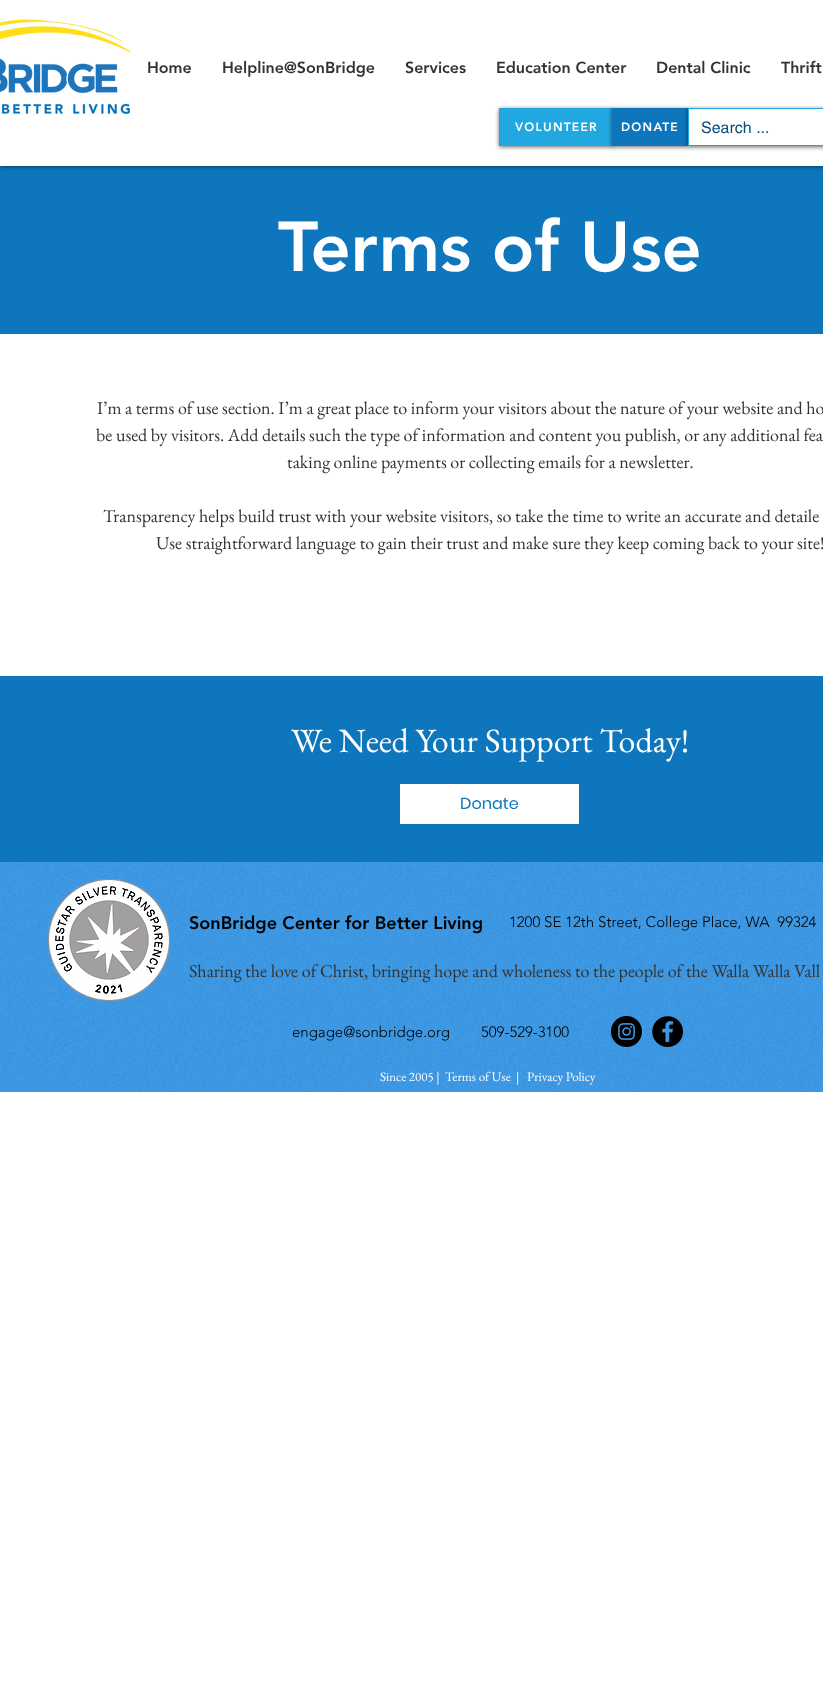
(async () => {
    const canvas = document.querySelector("canvas");
    canvas.width = 823;
    canvas.height = 1704;
    const context = canvas.getContext("2d");
    context.miterLimit = 4;
    context.fontKerning = "normal";
    function write(s, x, y, font, color) {
        context.font = font;
        context.fillStyle = color;
        context.fillText(s, x, y);
    }
    function block(x, y, w, h, color) {
        context.fillStyle = color;
        context.fillRect(x, y, w, h);
    }
    async function photo(src, x, y, w, h) {
        const img = new Image();
        img.src = src;
        await img.decode();
        context.drawImage(img, x, y, w, h);
    }

    block(0, 0, 823, 1704, "rgb(255, 255, 255)");
    block(0, 166, 823, 168, "rgb(13, 118, 189)");
    context.fillStyle = "rgba(0, 0, 0, 0.7)";
    context.filter = "blur(2.5px)";
    context.beginPath();
    context.rect(0, 0, 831, 166);
    context.fill();
    context.filter = "none";
    block(0, 0, 823, 166, "rgb(255, 255, 255)");
    await photo("media/1.png", 0, 19, 131, 95);
    write("Home", 147, 73, "900 16px 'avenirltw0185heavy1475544'", "rgb(51, 51, 51)");
    write("Helpline@SonBridge", 222, 73, "900 16px 'avenirltw0185heavy1475544'", "rgb(51, 51, 51)");
    write("Services", 405, 73, "900 16px 'avenirltw0185heavy1475544'", "rgb(51, 51, 51)");
    write("Education Center", 496, 73, "900 16px 'avenirltw0185heavy1475544'", "rgb(51, 51, 51)");
    write("Dental Clinic", 656, 73, "900 16px 'avenirltw0185heavy1475544'", "rgb(51, 51, 51)");
    write("Thrift", 781, 73, "900 16px 'avenirltw0185heavy1475544'", "rgb(51, 51, 51)");
    context.fillStyle = "rgba(0, 0, 0, 0.6)";
    context.filter = "blur(2px)";
    context.beginPath();
    context.rect(499, 109, 114, 38);
    context.fill();
    context.filter = "none";
    block(499, 108, 113, 38, "rgb(34, 168, 224)");
    context.letterSpacing = "1.25px";
    write("VOLUNTEER", 515, 131, "900 12px 'avenirltw0185heavy1475544'", "rgb(255, 255, 255)");
    context.fillStyle = "rgba(0, 0, 0, 0.6)";
    context.filter = "blur(2px)";
    context.beginPath();
    context.rect(612, 109, 76, 38);
    context.fill();
    context.filter = "none";
    block(612, 108, 76, 38, "rgb(13, 118, 189)");
    write("DONATE", 621, 131, "900 12px 'avenirltw0185heavy1475544'", "rgb(255, 255, 255)");
    context.fillStyle = "rgba(0, 0, 0, 0.6)";
    context.filter = "blur(2px)";
    context.beginPath();
    context.rect(688, 109, 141, 38);
    context.fill();
    context.filter = "none";
    context.strokeStyle = "rgb(34, 168, 224)";
    context.strokeRect(688.5, 108.5, 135, 37);
    block(689, 109, 134, 36, "rgb(255, 255, 255)");
    context.letterSpacing = "0px";
    write("Search ...", 701, 133, "16px helvetica", "rgb(9, 79, 126)");
    write("Terms of Use", 278, 271, "900 70px 'avenirltw0185heavy1475544'", "rgb(255, 255, 255)");
    write("I’m a terms of use section. I’m a great place to inform your visitors about the nature of your website and ho", 97, 414, "18px EB Garamond", "rgb(51, 51, 51)");
    write("be used by visitors. Add details such the type of information and content you publish, or any additional fea", 96, 441, "18px EB Garamond", "rgb(51, 51, 51)");
    write("taking online payments or collecting emails for a newsletter.", 287, 468, "18px EB Garamond", "rgb(51, 51, 51)");
    write("Transparency helps build trust with your website visitors, so take the time to write an accurate and detaile", 103, 522, "18px EB Garamond", "rgb(51, 51, 51)");
    write("Use straightforward language to gain their trust and make sure they keep coming back to your site!", 156, 549, "18px EB Garamond", "rgb(51, 51, 51)");
    block(0, 676, 823, 186, "rgb(13, 118, 189)");
    write("We Need Your Support Today!", 291, 752, "34px EB Garamond", "rgb(255, 255, 255)");
    block(400, 784, 179, 40, "rgb(255, 255, 255)");
    write("Donate", 460, 809, "16px Poppins", "rgb(13, 118, 189)");
    block(0, 862, 823, 230, "rgb(61, 155, 233)");
    await photo("media/2.png", 0, 862, 823, 230);
    await photo("media/3.png", 48, 879, 122, 122);
    write("SonBridge Center for Better Living", 189, 929, "900 18px 'avenirltw0185heavy1475544'", "rgb(0, 0, 0)");
    write("1200 SE 12th Street, College Place, WA  99324", 509, 927, "300 15px 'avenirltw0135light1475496'", "rgb(0, 0, 0)");
    write("Sharing the love of Christ, bringing hope and wholeness to the people of the Walla Walla Vall", 189, 977, "18px EB Garamond", "rgb(51, 51, 51)");
    write("engage@sonbridge.org", 292, 1037, "300 15px 'avenirltw0135light1475496'", "rgb(0, 0, 0)");
    write("509-529-3100", 481, 1037, "300 15px 'avenirltw0135light1475496'", "rgb(0, 0, 0)");
    await photo("media/4.png", 611, 1016, 31, 31);
    await photo("media/5.png", 652, 1016, 31, 31);
    write("Since 2005 |", 380, 1081, "13px EB Garamond", "rgb(255, 255, 255)");
    write("Terms of Use", 445, 1081, "13px EB Garamond", "rgb(255, 255, 255)");
    write("|", 516, 1081, "13px EB Garamond", "rgb(255, 255, 255)");
    write("Privacy Policy", 527, 1081, "13px EB Garamond", "rgb(255, 255, 255)");
})();
